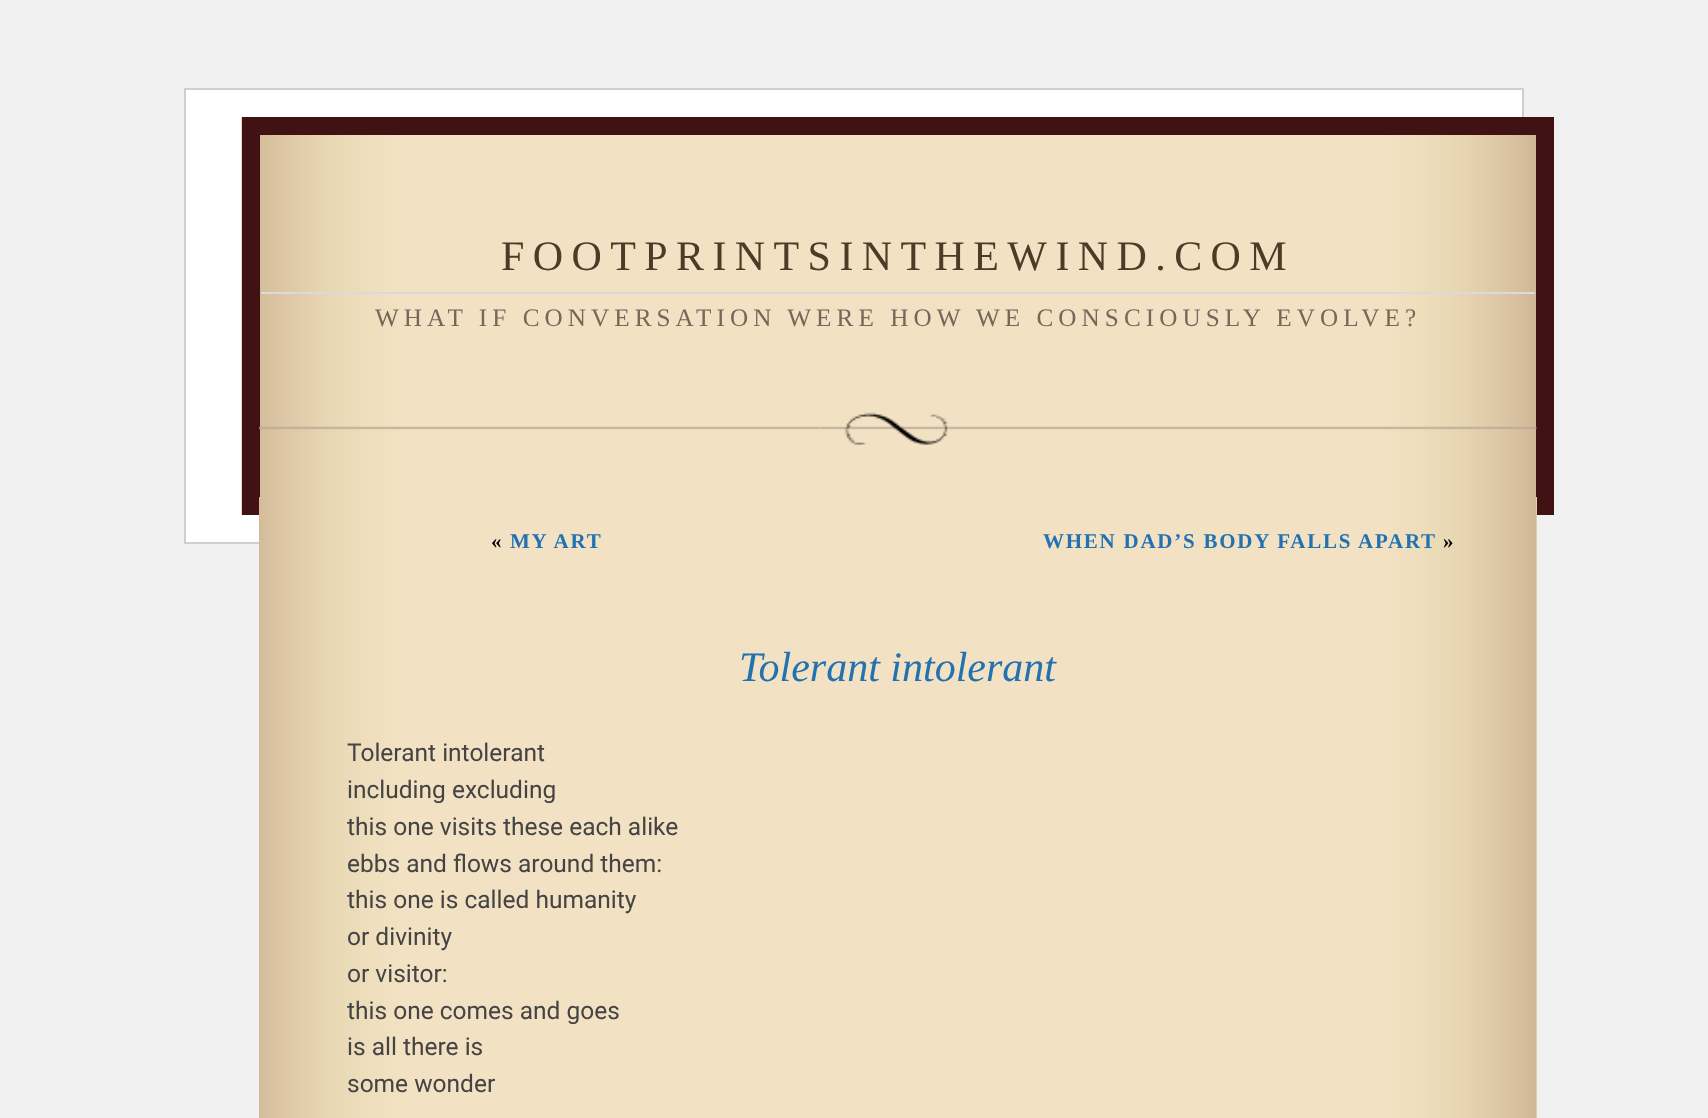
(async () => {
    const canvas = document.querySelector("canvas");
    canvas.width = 1708;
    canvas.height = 1118;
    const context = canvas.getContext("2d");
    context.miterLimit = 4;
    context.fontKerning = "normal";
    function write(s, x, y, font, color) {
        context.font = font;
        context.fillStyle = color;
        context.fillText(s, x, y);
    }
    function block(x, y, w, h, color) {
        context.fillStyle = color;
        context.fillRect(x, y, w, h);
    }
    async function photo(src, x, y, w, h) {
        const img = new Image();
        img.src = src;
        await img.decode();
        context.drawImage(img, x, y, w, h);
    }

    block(0, 0, 1708, 1118, "rgb(241, 241, 241)");
    context.fillStyle = "rgb(255, 255, 255)";
    context.beginPath();
    context.rect(185, 89, 1338, 454);
    context.fill();
    context.strokeStyle = "rgb(204, 208, 212)";
    context.lineWidth = 2;
    context.stroke();
    await photo("media/1.png", 241, 117, 1295, 398);
    context.strokeStyle = "rgb(65, 18, 19)";
    context.lineWidth = 18;
    context.strokeRect(251, 126, 1294, 380);
    await photo("media/2.png", 259, 412, 1278, 33);
    block(261, 292, 1274, 2, "rgb(218, 218, 218)");
    context.letterSpacing = "8.4px";
    write("FOOTPRINTSINTHEWIND.COM", 501, 270, "42px Liberation Serif", "rgb(77, 59, 39)");
    context.letterSpacing = "5.05px";
    write("WHAT IF CONVERSATION WERE HOW WE CONSCIOUSLY EVOLVE?", 375, 326, "25.2px Liberation Serif", "rgb(118, 103, 90)");
    block(1536, 497, 1, 621, "rgb(242, 226, 193)");
    await photo("media/3.png", 259, 497, 1278, 621);
    context.letterSpacing = "1.75px";
    write("«", 491, 548, "bold 21px Liberation Serif", "rgb(0, 0, 0)");
    write("MY ART", 510, 548, "bold 21px Liberation Serif", "rgb(34, 113, 177)");
    write("WHEN DAD’S BODY FALLS APART", 1043, 548, "bold 21px Liberation Serif", "rgb(34, 113, 177)");
    write("»", 1443, 548, "bold 21px Liberation Serif", "rgb(0, 0, 0)");
    context.letterSpacing = "0px";
    write("Tolerant intolerant", 739, 681, "italic 42px Liberation Serif", "rgb(34, 113, 177)");
    write("Tolerant intolerant", 347, 761, "24.5px Roboto", "rgb(68, 68, 68)");
    write("including excluding", 347, 798, "24.5px Roboto", "rgb(68, 68, 68)");
    write("this one visits these each alike", 347, 835, "24.5px Roboto", "rgb(68, 68, 68)");
    write("ebbs and flows around them:", 347, 872, "24.5px Roboto", "rgb(68, 68, 68)");
    write("this one is called humanity", 347, 908, "24.5px Roboto", "rgb(68, 68, 68)");
    write("or divinity", 347, 945, "24.5px Roboto", "rgb(68, 68, 68)");
    write("or visitor:", 347, 982, "24.5px Roboto", "rgb(68, 68, 68)");
    write("this one comes and goes", 347, 1019, "24.5px Roboto", "rgb(68, 68, 68)");
    write("is all there is", 347, 1055, "24.5px Roboto", "rgb(68, 68, 68)");
    write("some wonder", 347, 1092, "24.5px Roboto", "rgb(68, 68, 68)");
})();
